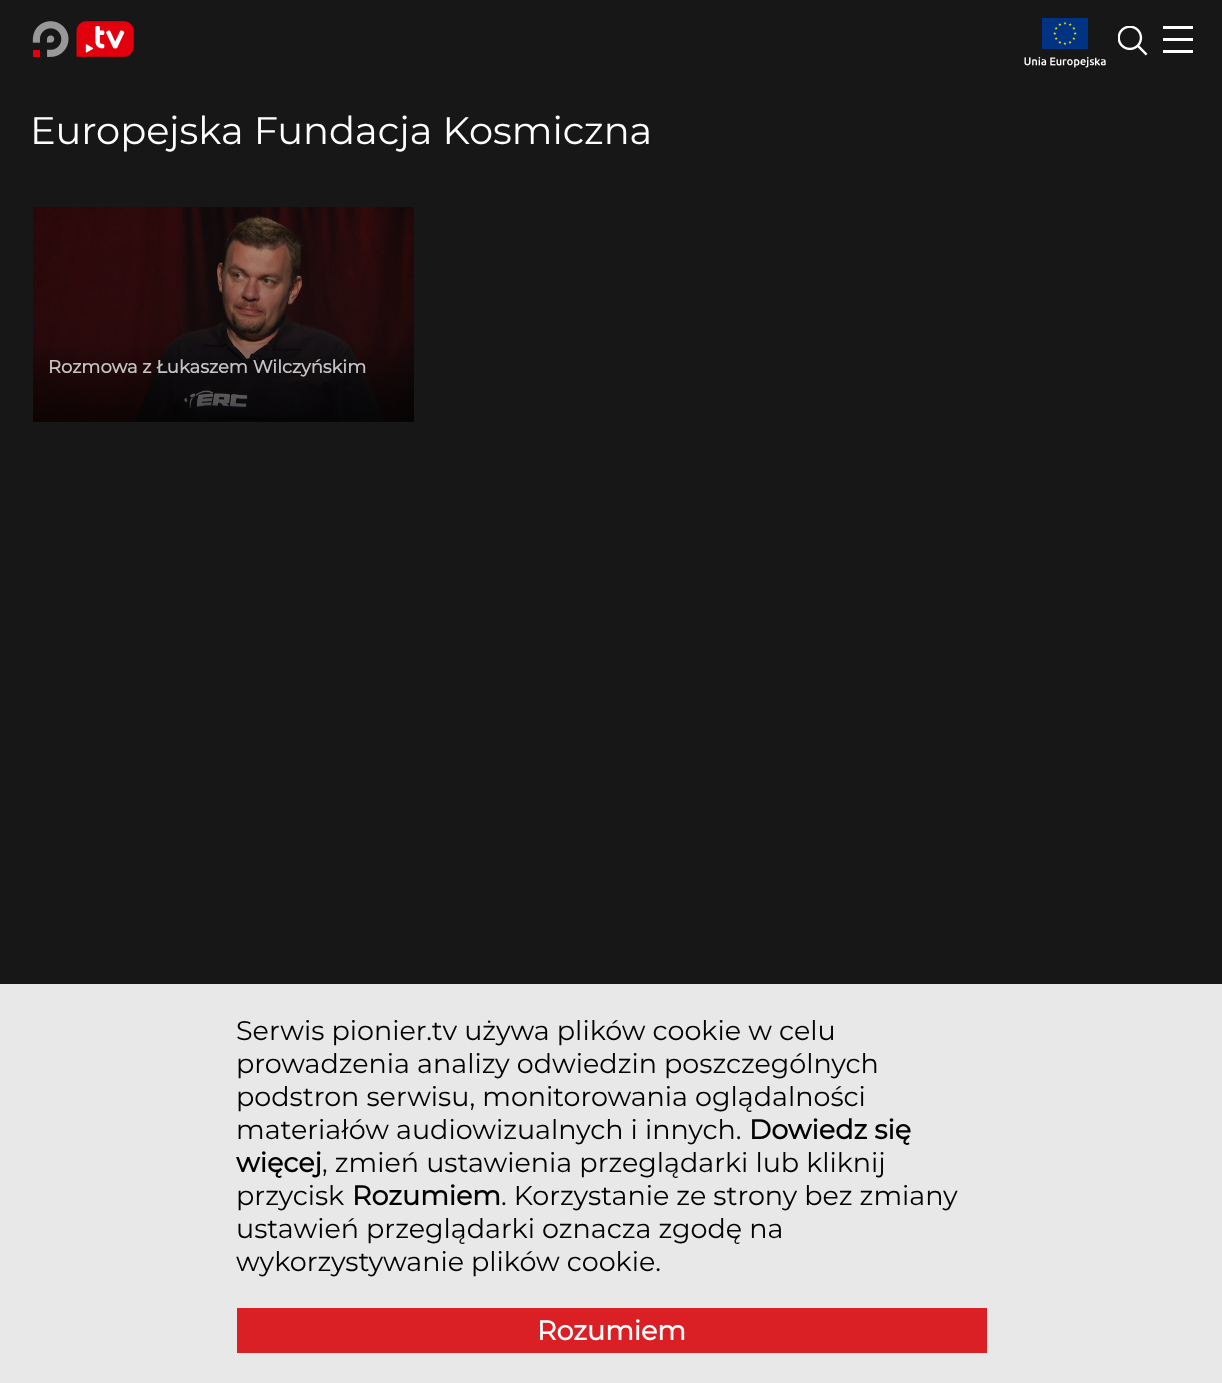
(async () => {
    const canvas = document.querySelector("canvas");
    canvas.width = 1222;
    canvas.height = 1383;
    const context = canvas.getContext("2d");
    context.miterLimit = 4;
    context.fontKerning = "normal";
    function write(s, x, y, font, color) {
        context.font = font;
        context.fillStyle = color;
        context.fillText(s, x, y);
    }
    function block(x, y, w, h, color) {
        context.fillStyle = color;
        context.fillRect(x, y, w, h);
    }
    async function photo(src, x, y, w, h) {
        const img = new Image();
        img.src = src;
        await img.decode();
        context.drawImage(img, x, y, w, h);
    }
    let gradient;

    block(0, 0, 1222, 1383, "rgb(23, 23, 23)");
    await photo("media/1.png", 32, 21, 102, 36);
    await photo("media/2.png", 1024, 18, 82, 50);
    await photo("media/3.png", 1118, 26, 30, 30);
    block(1163, 38, 30, 3, "rgb(255, 255, 255)");
    block(1163, 26, 30, 3, "rgb(255, 255, 255)");
    block(1163, 50, 30, 3, "rgb(255, 255, 255)");
    write("Europejska Fundacja Kosmiczna", 30, 144, "100 38.4px Montserrat", "rgb(255, 255, 255)");
    await photo("media/4.png", 33, 207, 381, 215);
    gradient = context.createLinearGradient(224, 207, 224, 422);
    gradient.addColorStop(0, "rgba(0, 0, 0, 0)");
    gradient.addColorStop(1, "rgba(0, 0, 0, 0.25)");
    context.fillStyle = gradient;
    context.fillRect(33, 240, 381, 182);
    gradient = context.createLinearGradient(224, 341, 224, 423);
    gradient.addColorStop(0, "rgba(0, 0, 0, 0)");
    gradient.addColorStop(0.6, "rgba(0, 0, 0, 0.38)");
    gradient.addColorStop(1, "rgba(0, 0, 0, 0.6)");
    context.fillStyle = gradient;
    context.fillRect(33, 344, 381, 78);
    write("Rozmowa z Łukaszem Wilczyńskim", 48, 373, "bold 18px Montserrat", "rgb(197, 195, 195)");
    block(0, 984, 1222, 399, "rgb(232, 232, 232)");
    write("Serwis pionier.tv używa plików cookie w celu", 236, 1040, "100 27px Montserrat", "rgb(0, 0, 0)");
    write("prowadzenia analizy odwiedzin poszczególnych", 236, 1073, "100 27px Montserrat", "rgb(0, 0, 0)");
    write("podstron serwisu, monitorowania oglądalności", 236, 1106, "100 27px Montserrat", "rgb(0, 0, 0)");
    write("materiałów audiowizualnych i innych.", 236, 1139, "100 27px Montserrat", "rgb(0, 0, 0)");
    write("Dowiedz się", 749, 1139, "bold 27px Montserrat", "rgb(0, 0, 0)");
    write("więcej", 236, 1172, "bold 27px Montserrat", "rgb(0, 0, 0)");
    write(", zmień ustawienia przeglądarki lub kliknij", 322, 1172, "100 27px Montserrat", "rgb(0, 0, 0)");
    write("przycisk", 236, 1205, "100 27px Montserrat", "rgb(0, 0, 0)");
    write("Rozumiem", 352, 1205, "bold 27px Montserrat", "rgb(0, 0, 0)");
    write(". Korzystanie ze strony bez zmiany", 501, 1205, "100 27px Montserrat", "rgb(0, 0, 0)");
    write("ustawień przeglądarki oznacza zgodę na", 236, 1238, "100 27px Montserrat", "rgb(0, 0, 0)");
    write("wykorzystywanie plików cookie.", 236, 1271, "100 27px Montserrat", "rgb(0, 0, 0)");
    block(237, 1308, 750, 45, "rgb(219, 32, 37)");
    write("Rozumiem", 537, 1340, "bold 27px Montserrat", "rgb(255, 255, 255)");
})();
